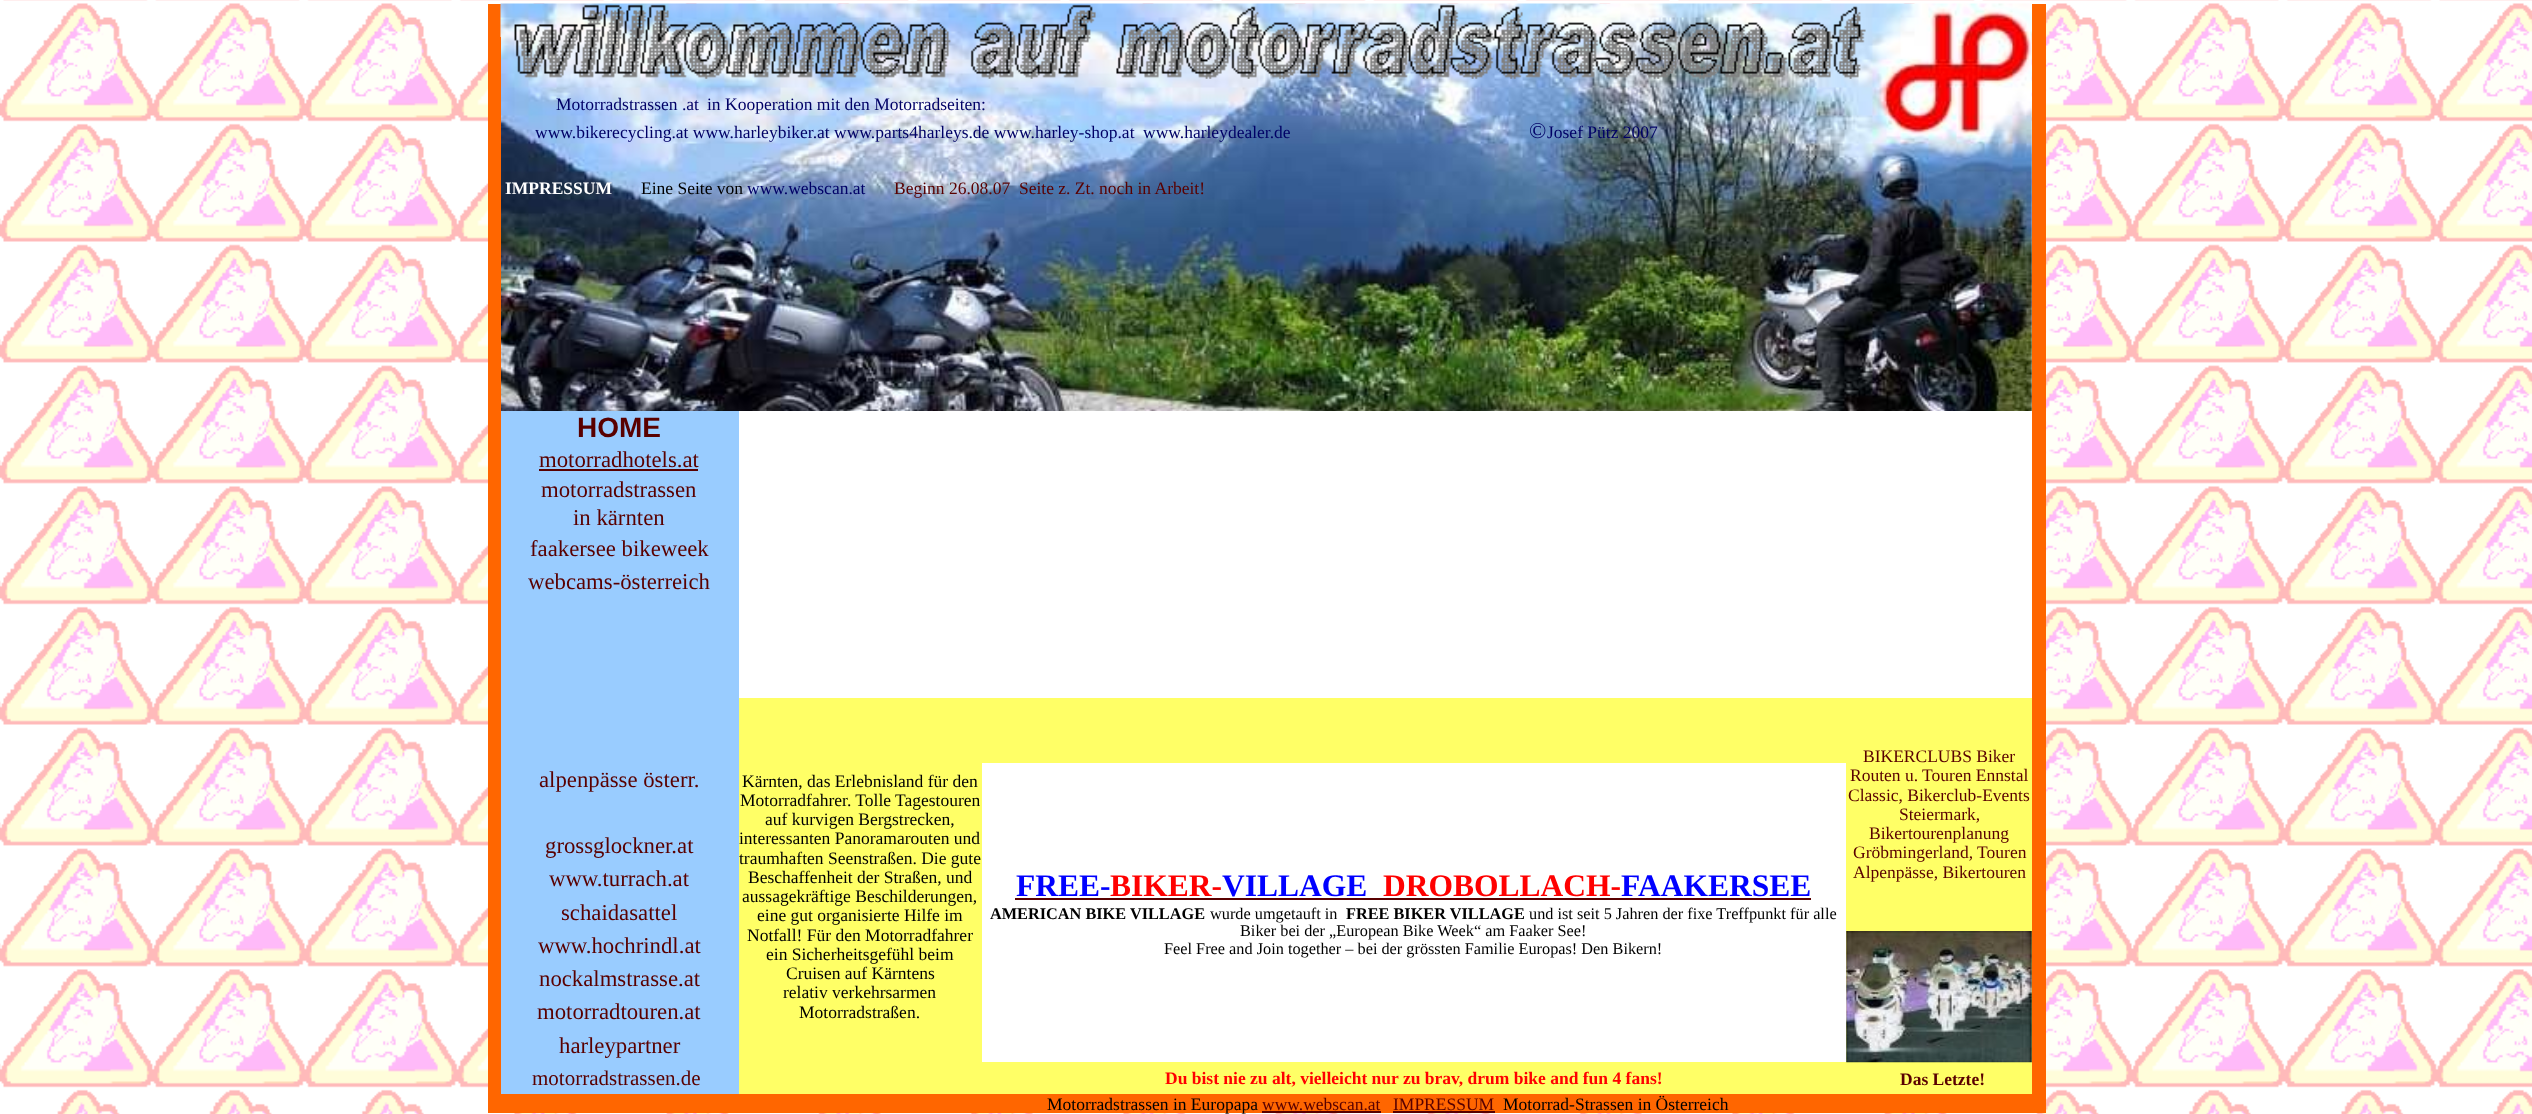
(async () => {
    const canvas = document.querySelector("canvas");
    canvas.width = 2532;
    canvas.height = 1114;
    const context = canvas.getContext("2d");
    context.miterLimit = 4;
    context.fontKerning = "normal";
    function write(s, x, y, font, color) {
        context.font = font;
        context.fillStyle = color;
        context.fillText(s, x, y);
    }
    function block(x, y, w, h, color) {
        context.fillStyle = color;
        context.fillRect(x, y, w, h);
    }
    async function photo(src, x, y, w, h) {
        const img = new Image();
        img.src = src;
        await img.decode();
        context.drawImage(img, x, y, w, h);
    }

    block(0, 0, 2532, 1114, "rgb(255, 255, 255)");
    await photo("media/1.png", 0, 0, 2532, 1114);
    block(488, 4, 13, 33, "rgb(255, 102, 0)");
    await photo("media/2.png", 500, 3, 1532, 408);
    block(488, 37, 13, 1076, "rgb(255, 102, 0)");
    await photo("media/3.png", 514, 4, 1352, 75);
    write("Motorradstrassen .at", 556, 110, "17.5px Liberation Serif", "rgb(0, 0, 102)");
    write("in Kooperation mit den Motorradseiten:", 707, 110, "17.5px Liberation Serif", "rgb(0, 0, 102)");
    write("www.bikerecycling.at www.harleybiker.at www.parts4harleys.de www.harley-shop.at", 535, 138, "17.5px Liberation Serif", "rgb(0, 0, 102)");
    write("www.harleydealer.de", 1143, 138, "17.5px Liberation Serif", "rgb(0, 0, 102)");
    write("©", 1529, 138, "22.75px Liberation Serif", "rgb(0, 0, 102)");
    write("Josef Pütz 2007", 1547, 138, "17.5px Liberation Serif", "rgb(0, 0, 102)");
    write("IMPRESSUM", 505, 194, "bold 17.5px Liberation Serif", "rgb(255, 255, 255)");
    write("Eine Seite von", 641, 194, "17.5px Liberation Serif", "rgb(0, 0, 0)");
    write("www.webscan.at", 747, 194, "17.5px Liberation Serif", "rgb(0, 0, 102)");
    write("Beginn 26.08.07  Seite z. Zt. noch in Arbeit!", 894, 194, "17.5px Liberation Serif", "rgb(89, 0, 0)");
    block(2032, 4, 14, 1090, "rgb(255, 102, 0)");
    block(501, 411, 238, 683, "rgb(153, 204, 255)");
    write("HOME", 577, 437, "bold 28px Liberation Sans", "rgb(89, 0, 0)");
    block(739, 411, 1293, 287, "rgb(255, 255, 255)");
    write("motorradhotels.at", 539, 467, "22.75px Liberation Serif", "rgb(89, 0, 0)");
    block(539, 469, 159, 2, "rgb(89, 0, 0)");
    write("motorradstrassen", 541, 497, "22.75px Liberation Serif", "rgb(89, 0, 0)");
    write("in kärnten", 573, 525, "22.75px Liberation Serif", "rgb(89, 0, 0)");
    write("faakersee bikeweek", 530, 556, "22.75px Liberation Serif", "rgb(89, 0, 0)");
    write("webcams-österreich", 528, 589, "22.75px Liberation Serif", "rgb(89, 0, 0)");
    block(982, 698, 864, 65, "rgb(255, 255, 102)");
    block(739, 698, 243, 396, "rgb(255, 255, 102)");
    write("Kärnten, das Erlebnisland für den", 742, 787, "17.5px Liberation Serif", "rgb(0, 0, 0)");
    write("Motorradfahrer. Tolle", 740, 806, "17.5px Liberation Serif", "rgb(0, 0, 0)");
    write("Tagestouren", 895, 806, "17.5px Liberation Serif", "rgb(0, 0, 0)");
    write("auf kurvigen Bergstrecken,", 765, 825, "17.5px Liberation Serif", "rgb(0, 0, 0)");
    write("interessanten Panoramarouten und", 739, 844, "17.5px Liberation Serif", "rgb(0, 0, 0)");
    write("traumhaften Seenstraßen. Die gute", 739, 864, "17.5px Liberation Serif", "rgb(0, 0, 0)");
    write("Beschaffenheit der Straßen, und", 748, 883, "17.5px Liberation Serif", "rgb(0, 0, 0)");
    write("aussagekräftige Beschilderungen,", 742, 902, "17.5px Liberation Serif", "rgb(0, 0, 0)");
    write("eine gut organisierte Hilfe im", 757, 921, "17.5px Liberation Serif", "rgb(0, 0, 0)");
    write("Notfall! Für den Motorradfahrer", 747, 941, "17.5px Liberation Serif", "rgb(0, 0, 0)");
    write("ein Sicherheitsgefühl beim", 766, 960, "17.5px Liberation Serif", "rgb(0, 0, 0)");
    write("Cruisen auf Kärntens", 786, 979, "17.5px Liberation Serif", "rgb(0, 0, 0)");
    write("relativ verkehrsarmen", 783, 998, "17.5px Liberation Serif", "rgb(0, 0, 0)");
    write("Motorradstraßen.", 799, 1018, "17.5px Liberation Serif", "rgb(0, 0, 0)");
    block(1846, 698, 186, 364, "rgb(255, 255, 102)");
    write("BIKERCLUBS Biker", 1863, 762, "17.5px Liberation Serif", "rgb(89, 0, 0)");
    write("Routen u. Touren Ennstal", 1850, 781, "17.5px Liberation Serif", "rgb(89, 0, 0)");
    write("Classic, Bikerclub-Events", 1848, 801, "17.5px Liberation Serif", "rgb(89, 0, 0)");
    write("Steiermark,", 1899, 820, "17.5px Liberation Serif", "rgb(89, 0, 0)");
    write("Bikertourenplanung", 1869, 839, "17.5px Liberation Serif", "rgb(89, 0, 0)");
    write("Gröbmingerland, Touren", 1853, 858, "17.5px Liberation Serif", "rgb(89, 0, 0)");
    write("Alpenpässe, Bikertouren", 1853, 878, "17.5px Liberation Serif", "rgb(89, 0, 0)");
    write("alpenpässe österr.", 539, 787, "22.75px Liberation Serif", "rgb(89, 0, 0)");
    block(982, 763, 864, 299, "rgb(255, 255, 255)");
    write("FREE-", 1016, 896, "bold 31.5px Liberation Serif", "rgb(0, 0, 255)");
    write("BIKER-", 1110, 896, "bold 31.5px Liberation Serif", "rgb(255, 0, 0)");
    block(1015, 898, 796, 2, "rgb(89, 0, 0)");
    write("VILLAGE", 1222, 896, "bold 31.5px Liberation Serif", "rgb(0, 0, 255)");
    write("DROBOLLACH-", 1383, 896, "bold 31.5px Liberation Serif", "rgb(255, 0, 0)");
    write("FAAKERSEE", 1621, 896, "bold 31.5px Liberation Serif", "rgb(0, 0, 255)");
    write("AMERICAN BIKE VILLAGE", 990, 919, "bold 16.3px Liberation Serif", "rgb(0, 0, 0)");
    write("wurde umgetauft in", 1210, 919, "16.3px Liberation Serif", "rgb(0, 0, 0)");
    write("FREE BIKER VILLAGE", 1346, 919, "bold 16.3px Liberation Serif", "rgb(0, 0, 0)");
    write("und ist seit 5 Jahren der fixe Treffpunkt für alle", 1529, 919, "16.3px Liberation Serif", "rgb(0, 0, 0)");
    write("Biker bei der „European Bike Week“ am Faaker See!", 1240, 936, "16.3px Liberation Serif", "rgb(0, 0, 0)");
    write("Feel Free and Join together – bei der grössten Familie Europas! Den Bikern!", 1164, 954, "16.3px Liberation Serif", "rgb(0, 0, 0)");
    write("grossglockner.at", 545, 853, "22.75px Liberation Serif", "rgb(89, 0, 0)");
    write("www.turrach.at", 549, 886, "22.75px Liberation Serif", "rgb(89, 0, 0)");
    write("schaidasattel", 561, 920, "22.75px Liberation Serif", "rgb(89, 0, 0)");
    write("www.hochrindl.at", 538, 953, "22.75px Liberation Serif", "rgb(89, 0, 0)");
    block(982, 1062, 1050, 32, "rgb(255, 255, 102)");
    await photo("media/4.png", 1846, 931, 186, 132);
    write("nockalmstrasse.at", 539, 986, "22.75px Liberation Serif", "rgb(89, 0, 0)");
    write("motorradtouren.at", 537, 1019, "22.75px Liberation Serif", "rgb(89, 0, 0)");
    write("harleypartner", 559, 1053, "22.75px Liberation Serif", "rgb(89, 0, 0)");
    write("motorradstrassen.de", 532, 1085, "21px Liberation Serif", "rgb(89, 0, 0)");
    write("Du bist nie zu alt, vielleicht nur zu brav, drum bike and fun 4 fans!", 1165, 1084, "bold 17.5px Liberation Serif", "rgb(255, 0, 0)");
    write("Das Letzte!", 1900, 1085, "bold 17.5px Liberation Serif", "rgb(89, 0, 0)");
    block(501, 1094, 1545, 19, "rgb(255, 102, 0)");
    write("Motorradstrassen in Europapa", 1047, 1110, "17.5px Liberation Serif", "rgb(0, 0, 0)");
    write("www.webscan.at", 1262, 1110, "17.5px Liberation Serif", "rgb(89, 0, 0)");
    block(1262, 1111, 119, 2, "rgb(89, 0, 0)");
    write("IMPRESSUM", 1393, 1110, "17.5px Liberation Serif", "rgb(89, 0, 0)");
    block(1393, 1111, 102, 2, "rgb(89, 0, 0)");
    write("Motorrad-Strassen in Österreich", 1503, 1110, "17.5px Liberation Serif", "rgb(0, 0, 0)");
})();
